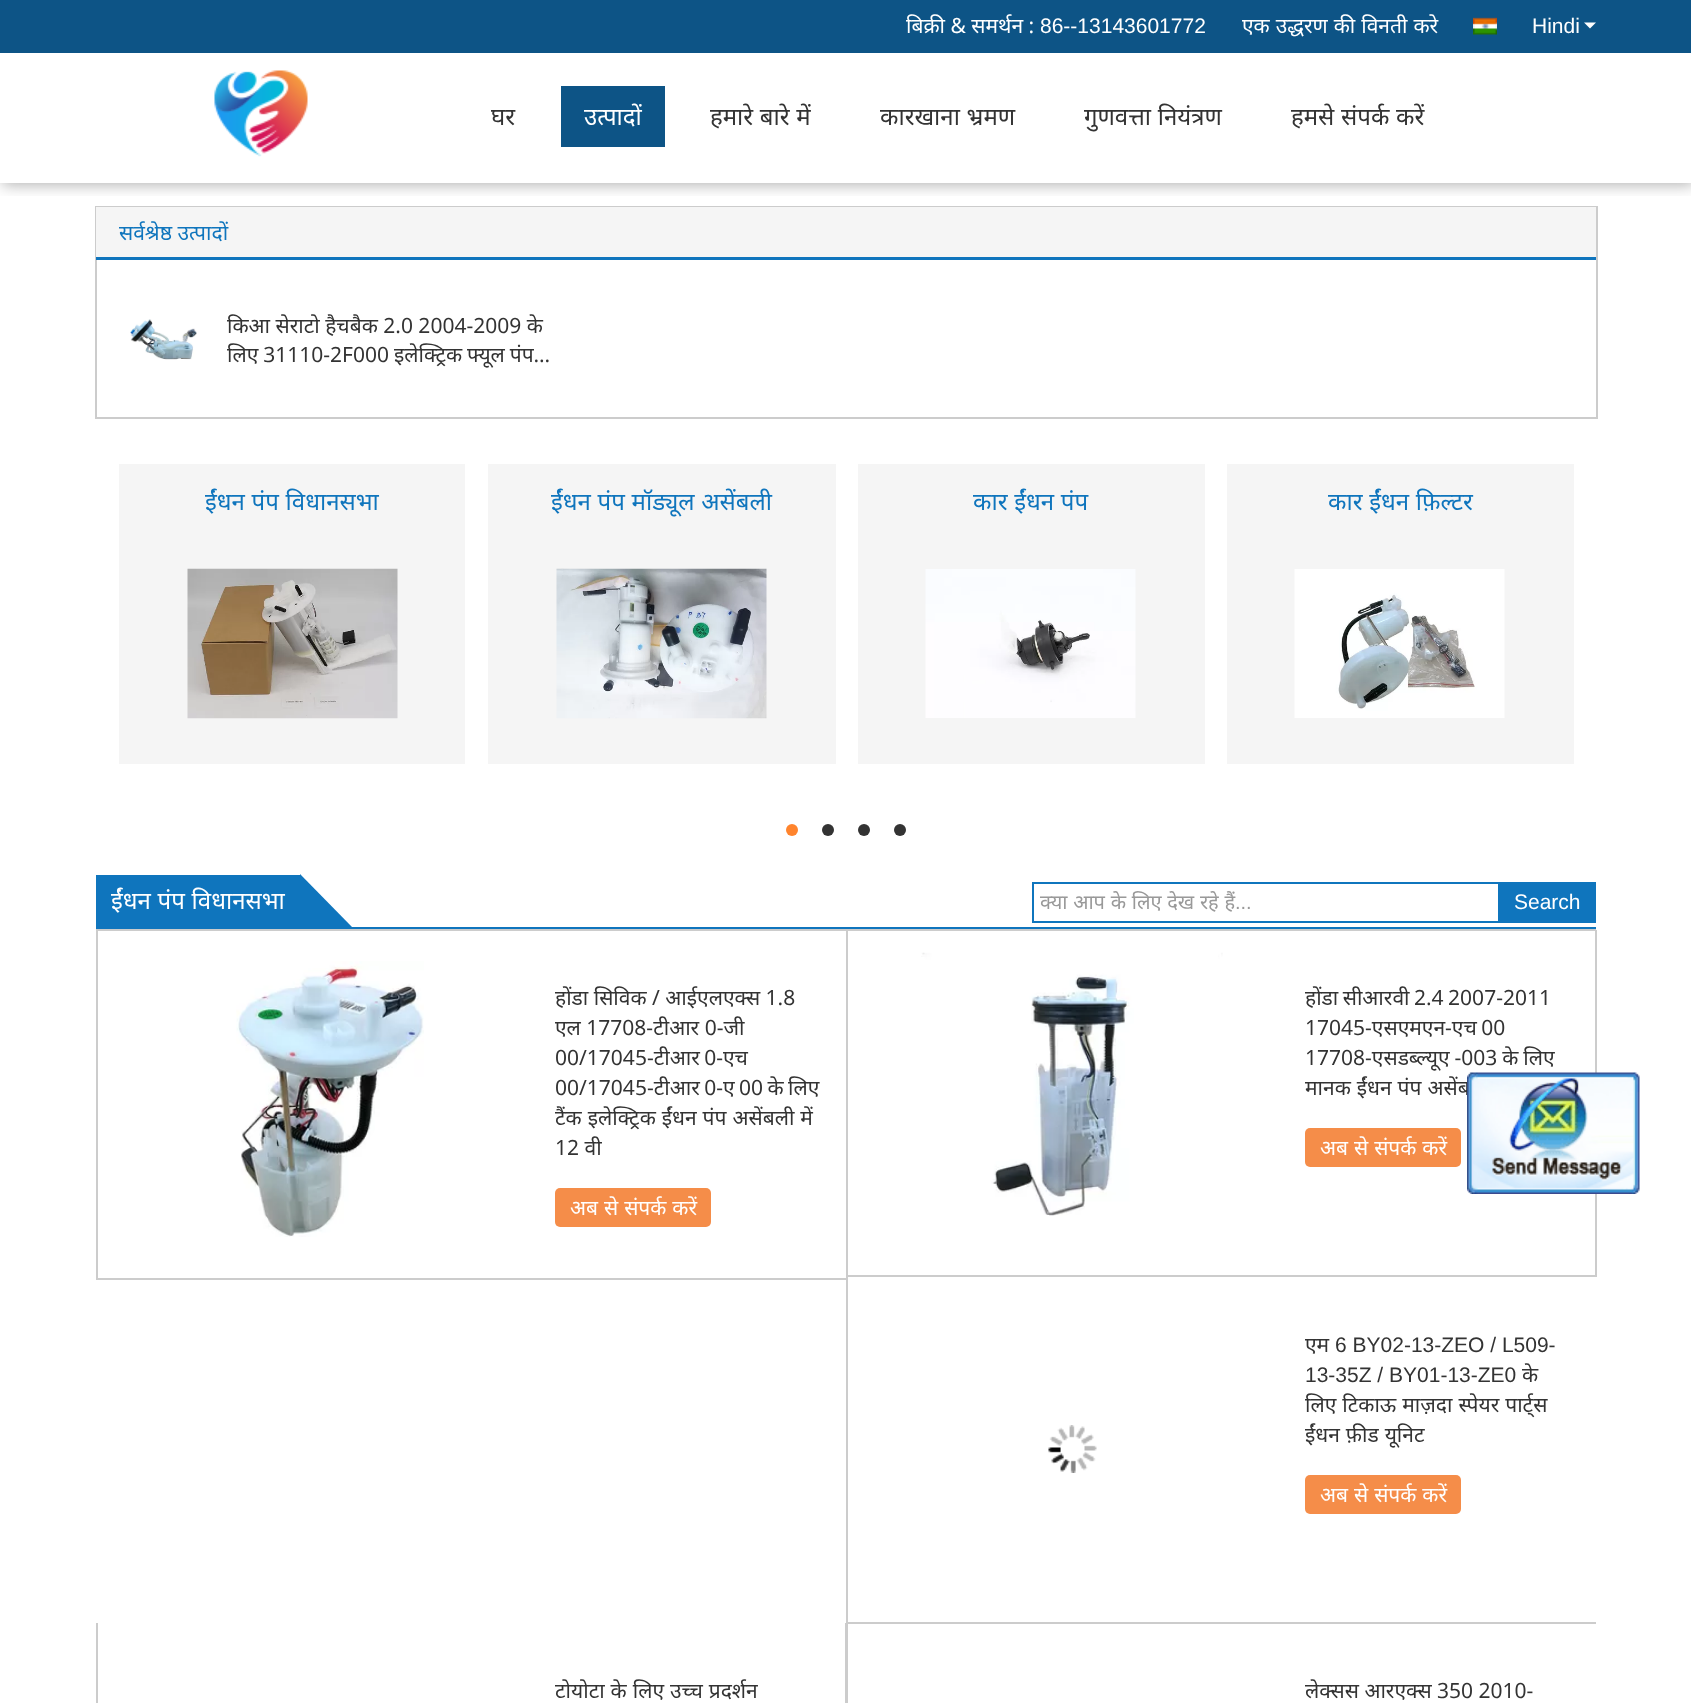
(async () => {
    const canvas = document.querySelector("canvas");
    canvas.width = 1691;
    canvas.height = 1703;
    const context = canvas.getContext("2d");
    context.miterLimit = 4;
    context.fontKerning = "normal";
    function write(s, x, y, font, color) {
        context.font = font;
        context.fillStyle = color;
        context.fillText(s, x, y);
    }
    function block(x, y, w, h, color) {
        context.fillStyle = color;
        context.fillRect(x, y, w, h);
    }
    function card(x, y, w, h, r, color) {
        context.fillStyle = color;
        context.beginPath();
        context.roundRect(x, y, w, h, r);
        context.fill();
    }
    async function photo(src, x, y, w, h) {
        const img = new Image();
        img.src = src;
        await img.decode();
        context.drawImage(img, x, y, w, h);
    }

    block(0, 0, 1691, 1703, "rgb(255, 255, 255)");
    context.save();
    context.beginPath();
    context.rect(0, 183, 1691, 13);
    context.clip();
    context.fillStyle = "rgba(0, 0, 0, 0.3)";
    context.filter = "blur(7.5px)";
    context.beginPath();
    context.rect(2, 2, 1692, 183);
    context.fill();
    context.filter = "none";
    context.restore();
    block(0, 0, 1691, 53, "rgb(13, 84, 134)");
    write("बिक्री & समर्थन :", 906, 33, "21px Noto Sans", "rgb(255, 255, 255)");
    write("86--13143601772", 1040, 33, "21px Liberation Sans", "rgb(255, 255, 255)");
    context.wordSpacing = "0.5px";
    write("एक उद्धरण की विनती करे", 1242, 33, "21px Noto Sans", "rgb(255, 255, 255)");
    await photo("media/1.png", 1473, 17, 24, 18);
    context.wordSpacing = "0px";
    write("Hindi", 1532, 33, "21px Liberation Sans", "rgb(255, 255, 255)");
    context.beginPath();
    context.moveTo(1584, 22.5);
    context.lineTo(1596, 22.5);
    context.lineTo(1590, 28.5);
    context.closePath();
    context.fill();
    await photo("media/2.png", 214, 70, 94, 87);
    write("घर", 491, 125, "24px Noto Sans", "rgb(51, 51, 51)");
    block(561, 86, 104, 61, "rgb(13, 84, 134)");
    write("उत्पादों", 584, 125, "24px Noto Sans", "rgb(255, 255, 255)");
    context.wordSpacing = "0.5px";
    write("हमारे बारे में", 710, 125, "24px Noto Sans", "rgb(51, 51, 51)");
    write("कारखाना भ्रमण", 880, 125, "24px Noto Sans", "rgb(51, 51, 51)");
    write("गुणवत्ता नियंत्रण", 1084, 125, "24px Noto Sans", "rgb(51, 51, 51)");
    write("हमसे संपर्क करें", 1291, 125, "24px Noto Sans", "rgb(51, 51, 51)");
    context.strokeStyle = "rgb(204, 204, 204)";
    context.lineWidth = 2;
    context.strokeRect(96, 207, 1501, 211);
    block(96, 207, 1500, 50, "rgb(245, 245, 245)");
    block(96, 257, 1500, 3, "rgb(15, 117, 189)");
    context.wordSpacing = "0px";
    write("सर्वश्रेष्ठ उत्पादों", 119, 240, "21px Noto Sans", "rgb(15, 117, 189)");
    await photo("media/3.png", 130, 319, 67, 41);
    write("किआ सेराटो हैचबैक 2.0 2004-2009 के", 227, 333, "21px Noto Sans", "rgb(51, 51, 51)");
    context.wordSpacing = "-0.5px";
    write("लिए 31110-2F000 इलेक्ट्रिक फ्यूल पंप…", 227, 362, "21px Noto Sans", "rgb(51, 51, 51)");
    block(119, 464, 346, 300, "rgb(245, 245, 245)");
    context.wordSpacing = "0.5px";
    write("ईंधन पंप विधानसभा", 205, 510, "24px Noto Sans", "rgb(15, 117, 189)");
    await photo("media/4.png", 187, 568, 211, 151);
    block(488, 464, 348, 300, "rgb(245, 245, 245)");
    write("ईंधन पंप मॉड्यूल असेंबली", 551, 510, "24px Noto Sans", "rgb(15, 117, 189)");
    await photo("media/5.png", 556, 568, 211, 151);
    block(858, 464, 347, 300, "rgb(245, 245, 245)");
    write("कार ईंधन पंप", 973, 510, "24px Noto Sans", "rgb(15, 117, 189)");
    await photo("media/6.png", 925, 569, 211, 149);
    block(1227, 464, 347, 300, "rgb(245, 245, 245)");
    write("कार ईंधन फ़िल्टर", 1328, 510, "24px Noto Sans", "rgb(15, 117, 189)");
    await photo("media/7.png", 1294, 569, 211, 149);
    context.fillStyle = "rgb(255, 132, 45)";
    context.beginPath();
    context.arc(792, 830, 6, 0, Math.PI * 2);
    context.fill();
    context.fillStyle = "rgb(51, 51, 51)";
    context.beginPath();
    context.arc(828, 830, 6, 0, Math.PI * 2);
    context.fill();
    context.beginPath();
    context.arc(864, 830, 6, 0, Math.PI * 2);
    context.fill();
    context.beginPath();
    context.arc(900, 830, 6, 0, Math.PI * 2);
    context.fill();
    block(96, 927, 1500, 2, "rgb(15, 117, 189)");
    block(96, 875, 204, 52, "rgb(15, 117, 189)");
    write("ईंधन पंप विधानसभा", 111, 909, "24px Noto Sans", "rgb(255, 255, 255)");
    context.fillStyle = "rgb(15, 117, 189)";
    context.beginPath();
    context.moveTo(352, 927);
    context.lineTo(300, 927);
    context.lineTo(300, 874);
    context.closePath();
    context.fill();
    context.strokeStyle = "rgb(15, 117, 189)";
    context.strokeRect(1033, 883, 466, 39);
    write("क्या आप के लिए देख रहे हैं", 1040, 909, "20px Noto Sans", "rgb(153, 153, 153)");
    context.wordSpacing = "0px";
    write("...", 1235, 909, "20px Liberation Sans", "rgb(153, 153, 153)");
    block(1500, 882, 96, 41, "rgb(15, 117, 189)");
    write("Search", 1514, 909, "21px Liberation Sans", "rgb(255, 255, 255)");
    block(96, 929, 1500, 2, "rgb(204, 204, 204)");
    block(96, 1278, 750, 2, "rgb(204, 204, 204)");
    block(96, 930, 2, 350, "rgb(204, 204, 204)");
    await photo("media/8.png", 236, 961, 188, 276);
    write("होंडा सिविक / आईएलएक्स 1.8", 555, 1005, "21px Noto Sans", "rgb(51, 51, 51)");
    write("एल 17708-टीआर 0-जी", 555, 1035, "21px Noto Sans", "rgb(51, 51, 51)");
    context.wordSpacing = "-1px";
    write("00/17045-टीआर 0-एच", 555, 1065, "21px Noto Sans", "rgb(51, 51, 51)");
    write("00/17045-टीआर 0-ए 00 के लिए", 555, 1095, "21px Noto Sans", "rgb(51, 51, 51)");
    context.wordSpacing = "0.5px";
    write("टैंक इलेक्ट्रिक ईंधन पंप असेंबली में", 555, 1125, "21px Noto Sans", "rgb(51, 51, 51)");
    context.wordSpacing = "0px";
    write("12 वी", 555, 1155, "21px Noto Sans", "rgb(51, 51, 51)");
    card(555, 1188, 156, 39, 5, "rgb(245, 141, 73)");
    context.wordSpacing = "0.5px";
    write("अब से संपर्क करें", 570, 1215, "21px Noto Sans", "rgb(255, 255, 255)");
    block(1595, 930, 2, 347, "rgb(204, 204, 204)");
    block(846, 1275, 750, 2, "rgb(204, 204, 204)");
    block(846, 930, 2, 347, "rgb(204, 204, 204)");
    await photo("media/9.png", 921, 952, 302, 264);
    context.wordSpacing = "-1px";
    write("होंडा सीआरवी 2.4 2007-2011", 1305, 1005, "21px Noto Sans", "rgb(51, 51, 51)");
    write("17045-एसएमएन-एच 00", 1305, 1035, "21px Noto Sans", "rgb(51, 51, 51)");
    context.wordSpacing = "-0.5px";
    write("17708-एसडब्ल्यूए -003 के लिए", 1305, 1065, "21px Noto Sans", "rgb(51, 51, 51)");
    context.wordSpacing = "0.5px";
    write("मानक ईंधन पंप असेंब", 1305, 1095, "21px Noto Sans", "rgb(51, 51, 51)");
    card(1305, 1128, 156, 39, 5, "rgb(245, 141, 73)");
    write("अब से संपर्क करें", 1320, 1155, "21px Noto Sans", "rgb(255, 255, 255)");
    block(846, 1622, 750, 2, "rgb(204, 204, 204)");
    block(846, 1277, 2, 346, "rgb(204, 204, 204)");
    await photo("media/10.png", 1048, 1425, 49, 48);
    context.wordSpacing = "0px";
    write("एम", 1305, 1352, "21px Noto Sans", "rgb(51, 51, 51)");
    write("6 BY02-13-ZEO / L509-", 1335, 1352, "21px Liberation Sans", "rgb(51, 51, 51)");
    write("13-35Z / BY01-13-ZE0", 1305, 1382, "21px Liberation Sans", "rgb(51, 51, 51)");
    write("के", 1522, 1382, "21px Noto Sans", "rgb(51, 51, 51)");
    context.wordSpacing = "0.5px";
    write("लिए टिकाऊ माज़दा स्पेयर पार्ट्स", 1305, 1412, "21px Noto Sans", "rgb(51, 51, 51)");
    write("ईंधन फ़ीड यूनिट", 1305, 1442, "21px Noto Sans", "rgb(51, 51, 51)");
    card(1305, 1475, 156, 39, 5, "rgb(245, 141, 73)");
    write("अब से संपर्क करें", 1320, 1502, "21px Noto Sans", "rgb(255, 255, 255)");
    block(845, 1623, 3, 80, "rgb(204, 204, 204)");
    block(96, 1623, 2, 80, "rgb(204, 204, 204)");
    write("टोयोटा के लिए उच्च प्रदर्शन", 555, 1698, "21px Noto Sans", "rgb(51, 51, 51)");
    context.wordSpacing = "0px";
    write("लेक्सस आरएक्स 350 2010-", 1305, 1698, "21px Noto Sans", "rgb(51, 51, 51)");
    await photo("media/11.png", 1467, 1072, 173, 122);
})();
